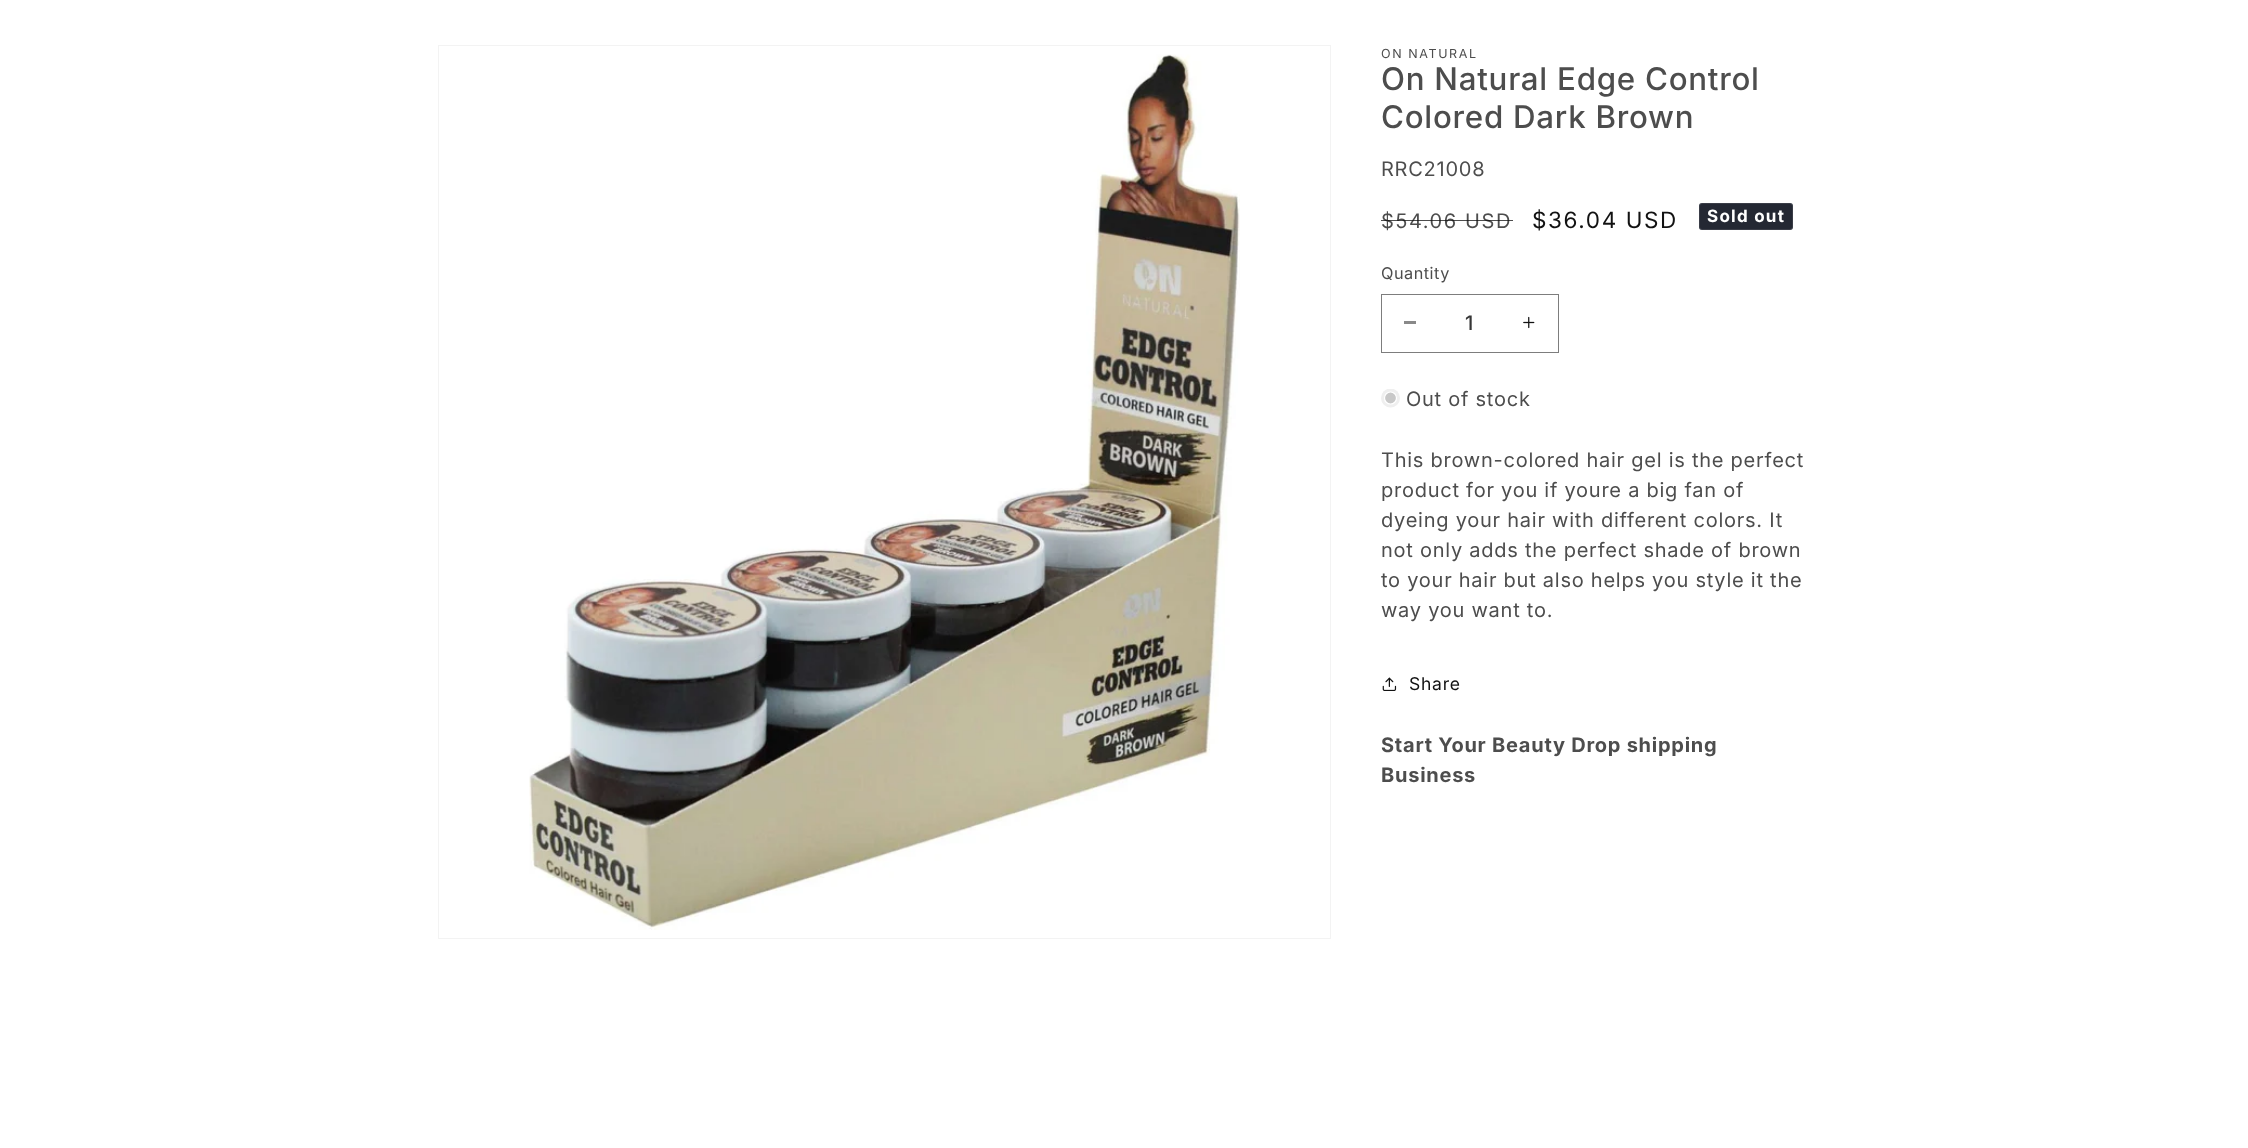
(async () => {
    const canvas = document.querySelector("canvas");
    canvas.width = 2248;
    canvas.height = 1148;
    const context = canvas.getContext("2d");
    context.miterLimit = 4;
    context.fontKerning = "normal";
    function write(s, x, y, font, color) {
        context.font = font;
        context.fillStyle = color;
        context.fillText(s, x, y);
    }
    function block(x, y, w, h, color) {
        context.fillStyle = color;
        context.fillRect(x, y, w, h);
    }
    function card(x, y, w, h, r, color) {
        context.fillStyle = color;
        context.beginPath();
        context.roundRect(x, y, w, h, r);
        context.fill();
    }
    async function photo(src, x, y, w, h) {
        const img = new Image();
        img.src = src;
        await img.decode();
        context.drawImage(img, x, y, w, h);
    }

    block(0, 0, 2248, 1148, "rgb(255, 255, 255)");
    context.strokeStyle = "rgb(243, 243, 243)";
    context.strokeRect(438.5, 45.5, 892, 893);
    await photo("media/1.png", 529, 54, 711, 876);
    context.letterSpacing = "1.6px";
    write("ON NATURAL", 1381, 58, "12.5px Inter", "rgb(77, 77, 77)");
    context.letterSpacing = "0.75px";
    write("On Natural Edge Control", 1381, 90, "500 31.25px Inter", "rgb(77, 77, 77)");
    write("Colored Dark Brown", 1381, 128, "500 31.25px Inter", "rgb(77, 77, 77)");
    write("RRC21008", 1381, 176, "20px Inter", "rgb(77, 77, 77)");
    context.letterSpacing = "1.6px";
    write("$54.06 USD", 1381, 228, "20px Inter", "rgb(77, 77, 77)");
    block(1381, 220, 132, 1, "rgba(18, 18, 18, 0.75)");
    write("$36.04 USD", 1532, 228, "22.5px Inter", "rgb(18, 18, 18)");
    card(1699, 203, 94, 27, 3, "rgb(36, 40, 51)");
    context.beginPath();
    context.roundRect(1699.5, 203.5, 93, 26, 2.5);
    context.strokeStyle = "rgba(255, 255, 255, 0.1)";
    context.stroke();
    context.letterSpacing = "1.25px";
    write("Sold out", 1707, 222, "bold 17px Inter", "rgb(255, 255, 255)");
    context.letterSpacing = "0.5px";
    write("Quantity", 1381, 279, "16.25px Inter", "rgb(77, 77, 77)");
    block(1404, 321, 12, 3, "rgb(137, 137, 137)");
    await photo("media/2.png", 1523, 316, 12, 13);
    context.strokeStyle = "rgb(125, 125, 125)";
    context.strokeRect(1381.5, 294.5, 177, 58);
    context.letterSpacing = "0px";
    write("1", 1465, 330, "500 20px Inter", "rgb(54, 54, 54)");
    context.save();
    context.beginPath();
    context.rect(1381, 389, 19, 19);
    context.clip();
    context.fillStyle = "rgb(239, 239, 239)";
    context.beginPath();
    context.arc(1390.5, 398, 9.5, 0, Math.PI * 2);
    context.fill();
    context.restore();
    context.fillStyle = "rgb(200, 200, 200)";
    context.beginPath();
    context.arc(1390.5, 398, 6, 0, Math.PI * 2);
    context.fill();
    context.strokeStyle = "rgb(255, 255, 255)";
    context.lineWidth = 1.2;
    context.stroke();
    context.letterSpacing = "0.75px";
    write("Out of stock", 1406, 406, "20px Inter", "rgb(77, 77, 77)");
    write("This brown-colored hair gel is the perfect", 1381, 467, "20px Inter", "rgb(77, 77, 77)");
    write("product for you if youre a big fan of", 1381, 497, "20px Inter", "rgb(77, 77, 77)");
    write("dyeing your hair with different colors. It", 1381, 527, "20px Inter", "rgb(77, 77, 77)");
    write("not only adds the perfect shade of brown", 1381, 557, "20px Inter", "rgb(77, 77, 77)");
    write("to your hair but also helps you style it the", 1381, 587, "20px Inter", "rgb(77, 77, 77)");
    write("way you want to.", 1381, 617, "20px Inter", "rgb(77, 77, 77)");
    await photo("media/3.png", 1382, 677, 15, 14);
    write("Share", 1409, 690, "17.5px Inter", "rgb(18, 18, 18)");
    write("Start Your Beauty Drop shipping", 1381, 752, "bold 20px Inter", "rgb(77, 77, 77)");
    write("Business", 1381, 782, "bold 20px Inter", "rgb(77, 77, 77)");
})();
